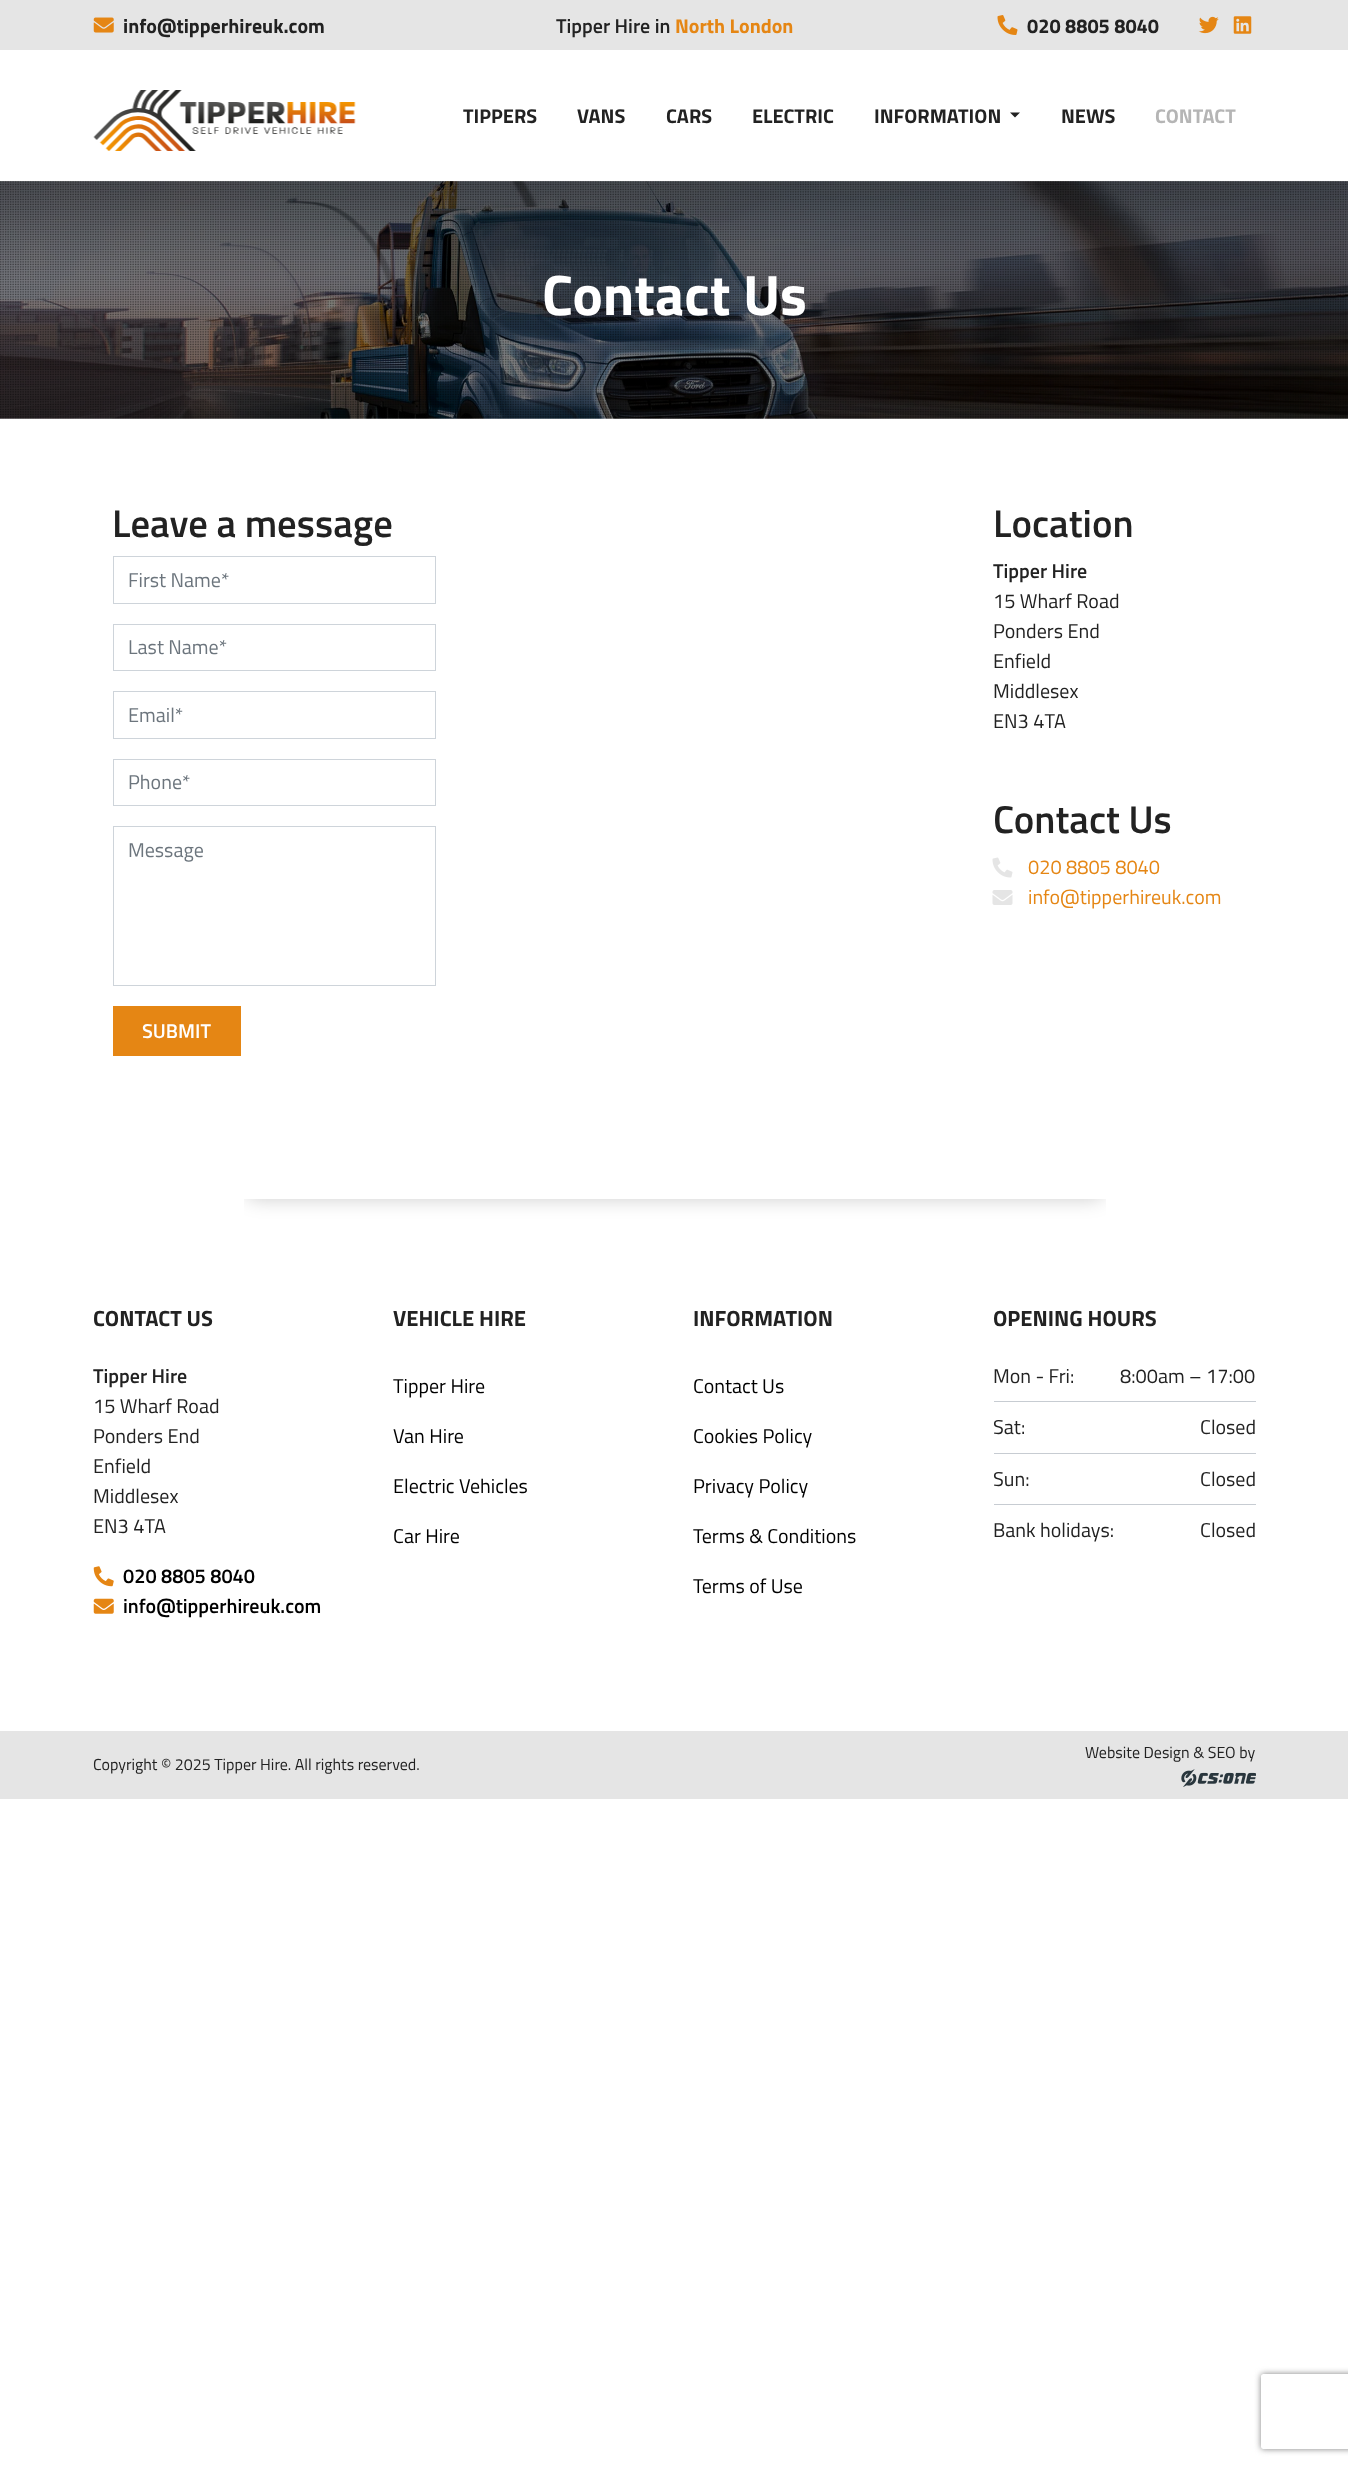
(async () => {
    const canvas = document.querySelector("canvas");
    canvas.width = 1348;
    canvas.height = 2466;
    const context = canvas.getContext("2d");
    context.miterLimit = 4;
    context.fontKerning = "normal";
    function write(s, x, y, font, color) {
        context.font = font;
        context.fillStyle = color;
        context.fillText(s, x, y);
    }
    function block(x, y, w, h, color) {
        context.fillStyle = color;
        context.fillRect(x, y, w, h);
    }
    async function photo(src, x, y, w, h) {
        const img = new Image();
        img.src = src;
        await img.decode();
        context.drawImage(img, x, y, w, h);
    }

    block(0, 0, 1348, 2466, "rgb(255, 255, 255)");
    block(0, 0, 1348, 50, "rgb(229, 229, 229)");
    await photo("media/1.png", 93, 17, 21, 16);
    write("info@tipperhireuk.com", 123, 33, "bold 20px Titillium Web", "rgb(34, 34, 34)");
    write("Tipper Hire in", 556, 33, "600 20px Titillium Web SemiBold", "rgb(34, 34, 34)");
    write("North London", 675, 33, "bold 20px Titillium Web", "rgb(229, 134, 20)");
    await photo("media/2.png", 997, 15, 21, 20);
    write("020 8805 8040", 1027, 33, "bold 20px Titillium Web", "rgb(34, 34, 34)");
    await photo("media/3.png", 1198, 16, 21, 18);
    await photo("media/4.png", 1233, 16, 19, 18);
    await photo("media/5.png", 93, 90, 263, 61);
    write("TIPPERS", 463, 123, "bold 20px Titillium Web", "rgb(34, 34, 34)");
    write("VANS", 577, 123, "bold 20px Titillium Web", "rgb(34, 34, 34)");
    write("CARS", 666, 123, "bold 20px Titillium Web", "rgb(34, 34, 34)");
    write("ELECTRIC", 752, 123, "bold 20px Titillium Web", "rgb(34, 34, 34)");
    write("INFORMATION", 874, 123, "bold 20px Titillium Web", "rgb(34, 34, 34)");
    context.beginPath();
    context.moveTo(1010, 112.5);
    context.lineTo(1020, 112.5);
    context.lineTo(1015, 117.5);
    context.closePath();
    context.fill();
    write("NEWS", 1061, 123, "bold 20px Titillium Web", "rgb(34, 34, 34)");
    write("CONTACT", 1155, 123, "bold 20px Titillium Web", "rgb(181, 181, 181)");
    await photo("media/6.png", 0, 181, 1348, 238);
    await photo("media/7.png", 0, 181, 1348, 238);
    write("Contact Us", 542, 315, "bold 57px Titillium Web", "rgb(255, 255, 255)");
    write("Leave a message", 112, 537, "600 38.75px Titillium Web SemiBold", "rgb(34, 34, 34)");
    context.strokeStyle = "rgb(206, 212, 218)";
    context.strokeRect(113.5, 556.5, 322, 47);
    write("First Name*", 128, 587, "20px Titillium Web", "rgb(108, 117, 125)");
    context.strokeRect(113.5, 624.5, 322, 46);
    write("Last Name*", 128, 654, "20px Titillium Web", "rgb(108, 117, 125)");
    context.strokeRect(113.5, 691.5, 322, 47);
    write("Email*", 128, 722, "20px Titillium Web", "rgb(108, 117, 125)");
    context.strokeRect(113.5, 759.5, 322, 46);
    write("Phone*", 128, 789, "20px Titillium Web", "rgb(108, 117, 125)");
    context.strokeRect(113.5, 826.5, 322, 159);
    write("Message", 128, 857, "20px Titillium Web", "rgb(108, 117, 125)");
    block(113, 1006, 128, 50, "rgb(229, 134, 20)");
    write("SUBMIT", 142, 1038, "600 20px Titillium Web SemiBold", "rgb(255, 255, 255)");
    context.save();
    context.beginPath();
    context.moveTo(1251, 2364);
    context.lineTo(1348, 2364);
    context.lineTo(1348, 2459);
    context.lineTo(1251, 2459);
    context.closePath();
    context.moveTo(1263.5, 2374);
    context.lineTo(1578.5, 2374);
    context.bezierCurveTo(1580, 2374, 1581, 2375, 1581, 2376.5);
    context.lineTo(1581, 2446.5);
    context.bezierCurveTo(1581, 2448, 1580, 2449, 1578.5, 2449);
    context.lineTo(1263.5, 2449);
    context.bezierCurveTo(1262, 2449, 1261, 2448, 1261, 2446.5);
    context.lineTo(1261, 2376.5);
    context.bezierCurveTo(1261, 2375, 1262, 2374, 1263.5, 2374);
    context.closePath();
    context.clip("evenodd");
    context.fillStyle = "rgb(128, 128, 128)";
    context.filter = "blur(3px)";
    context.beginPath();
    context.roundRect(1261, 2374, 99, 75, 2.5);
    context.fill();
    context.filter = "none";
    context.restore();
    write("Location", 993, 537, "600 38.75px Titillium Web SemiBold", "rgb(34, 34, 34)");
    write("Tipper Hire", 993, 578, "600 20px Titillium Web SemiBold", "rgb(34, 34, 34)");
    write("15 Wharf Road", 993, 608, "20px Titillium Web", "rgb(34, 34, 34)");
    write("Ponders End", 993, 638, "20px Titillium Web", "rgb(34, 34, 34)");
    write("Enfield", 993, 668, "20px Titillium Web", "rgb(34, 34, 34)");
    write("Middlesex", 993, 698, "20px Titillium Web", "rgb(34, 34, 34)");
    write("EN3 4TA", 993, 728, "20px Titillium Web", "rgb(34, 34, 34)");
    write("Contact Us", 993, 833, "600 38.75px Titillium Web SemiBold", "rgb(34, 34, 34)");
    await photo("media/8.png", 992, 857, 21, 21);
    write("020 8805 8040", 1028, 874, "20px Titillium Web", "rgb(229, 134, 20)");
    await photo("media/9.png", 992, 890, 21, 15);
    write("info@tipperhireuk.com", 1028, 904, "20px Titillium Web", "rgb(229, 134, 20)");
    context.save();
    context.beginPath();
    context.rect(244, 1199, 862, 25);
    context.clip();
    context.fillStyle = "rgba(0, 0, 0, 0.2)";
    context.filter = "blur(9.5px)";
    context.beginPath();
    context.roundRect(244, 1168, 862, 31, 15);
    context.fill();
    context.filter = "none";
    context.restore();
    write("CONTACT US", 93, 1326, "bold 22px Titillium Web", "rgb(34, 34, 34)");
    write("Tipper Hire", 93, 1383, "600 20px Titillium Web SemiBold", "rgb(34, 34, 34)");
    write("15 Wharf Road", 93, 1413, "20px Titillium Web", "rgb(34, 34, 34)");
    write("Ponders End", 93, 1443, "20px Titillium Web", "rgb(34, 34, 34)");
    write("Enfield", 93, 1473, "20px Titillium Web", "rgb(34, 34, 34)");
    write("Middlesex", 93, 1503, "20px Titillium Web", "rgb(34, 34, 34)");
    write("EN3 4TA", 93, 1533, "20px Titillium Web", "rgb(34, 34, 34)");
    await photo("media/10.png", 93, 1566, 21, 21);
    write("020 8805 8040", 123, 1583, "600 20px Titillium Web SemiBold", "rgb(0, 0, 0)");
    await photo("media/11.png", 93, 1598, 21, 16);
    write("info@tipperhireuk.com", 123, 1613, "600 20px Titillium Web SemiBold", "rgb(0, 0, 0)");
    write("VEHICLE HIRE", 393, 1326, "bold 22px Titillium Web", "rgb(34, 34, 34)");
    write("Tipper Hire", 393, 1393, "20px Titillium Web", "rgb(0, 0, 0)");
    write("Van Hire", 393, 1443, "20px Titillium Web", "rgb(0, 0, 0)");
    write("Electric Vehicles", 393, 1493, "20px Titillium Web", "rgb(0, 0, 0)");
    write("Car Hire", 393, 1543, "20px Titillium Web", "rgb(0, 0, 0)");
    write("INFORMATION", 693, 1326, "bold 22px Titillium Web", "rgb(34, 34, 34)");
    write("Contact Us", 693, 1393, "20px Titillium Web", "rgb(0, 0, 0)");
    write("Cookies Policy", 693, 1443, "20px Titillium Web", "rgb(0, 0, 0)");
    write("Privacy Policy", 693, 1493, "20px Titillium Web", "rgb(0, 0, 0)");
    write("Terms & Conditions", 693, 1543, "20px Titillium Web", "rgb(0, 0, 0)");
    write("Terms of Use", 693, 1593, "20px Titillium Web", "rgb(0, 0, 0)");
    write("OPENING HOURS", 993, 1326, "bold 22px Titillium Web", "rgb(34, 34, 34)");
    block(994, 1401, 262, 1, "rgb(199, 204, 210)");
    write("Mon - Fri:", 993, 1383, "20px Titillium Web", "rgb(34, 34, 34)");
    write("8:00am – 17:00", 1120, 1383, "20px Titillium Web", "rgb(34, 34, 34)");
    block(994, 1453, 262, 1, "rgb(199, 204, 210)");
    write("Sat:", 993, 1434, "20px Titillium Web", "rgb(34, 34, 34)");
    write("Closed", 1200, 1434, "20px Titillium Web", "rgb(34, 34, 34)");
    block(994, 1504, 262, 1, "rgb(199, 204, 210)");
    write("Sun:", 993, 1486, "20px Titillium Web", "rgb(34, 34, 34)");
    write("Closed", 1200, 1486, "20px Titillium Web", "rgb(34, 34, 34)");
    write("Bank holidays:", 993, 1537, "20px Titillium Web", "rgb(34, 34, 34)");
    write("Closed", 1200, 1537, "20px Titillium Web", "rgb(34, 34, 34)");
    block(0, 1731, 1348, 68, "rgb(229, 229, 229)");
    write("Website Design & SEO by", 1085, 1758, "16px Titillium Web", "rgb(34, 34, 34)");
    await photo("media/12.png", 1181, 1769, 75, 18);
    write("Copyright © 2025 Tipper Hire. All rights reserved.", 93, 1770, "16px Titillium Web", "rgb(34, 34, 34)");
})();
